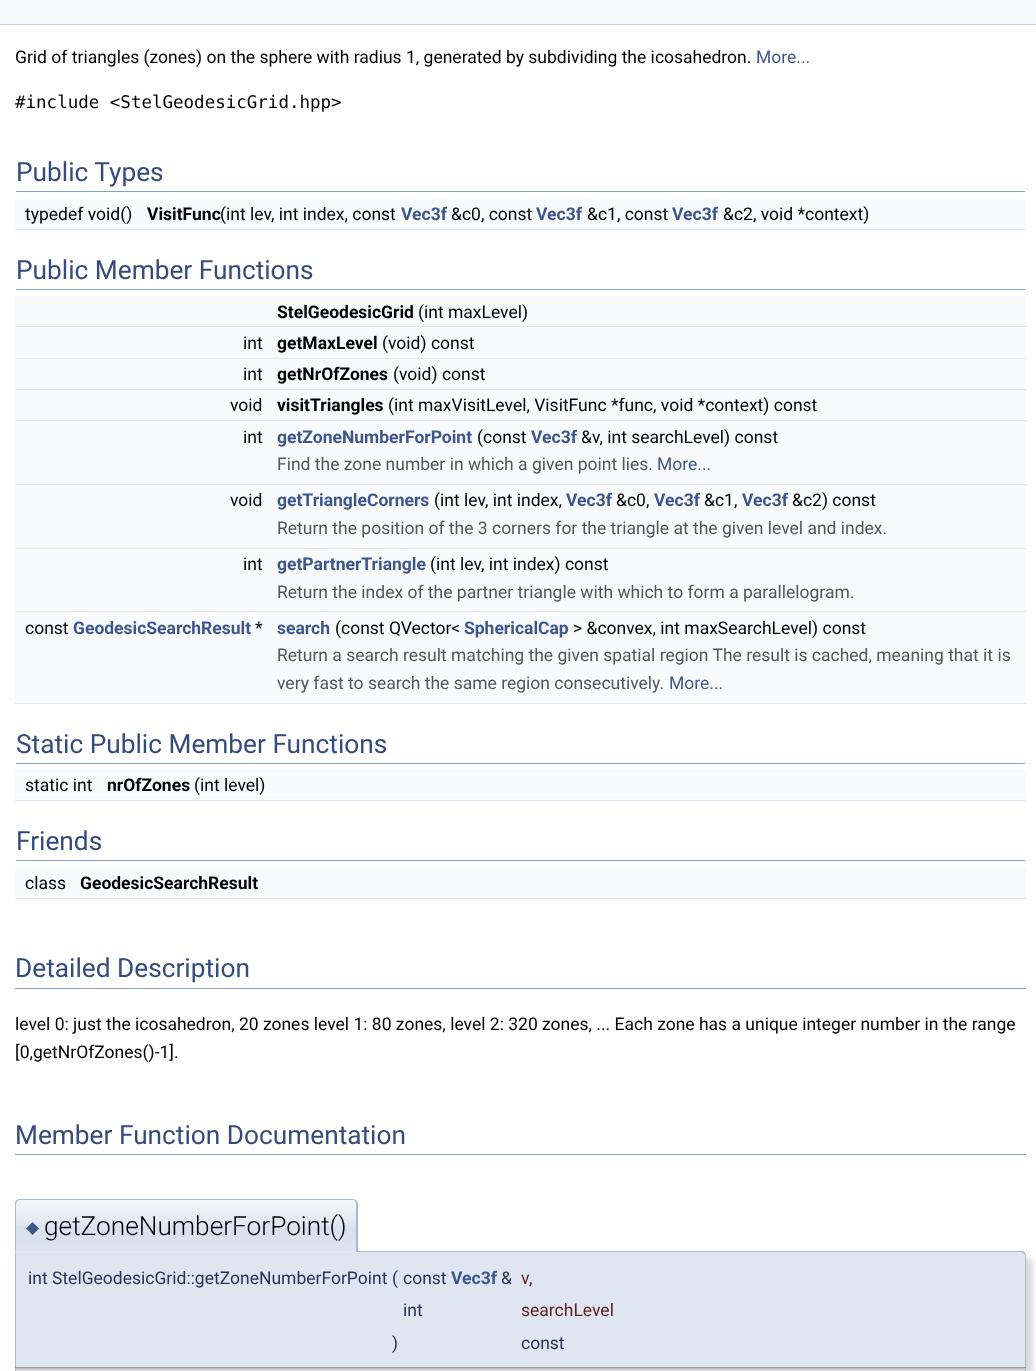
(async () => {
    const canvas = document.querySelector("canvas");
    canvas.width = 1036;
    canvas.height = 1371;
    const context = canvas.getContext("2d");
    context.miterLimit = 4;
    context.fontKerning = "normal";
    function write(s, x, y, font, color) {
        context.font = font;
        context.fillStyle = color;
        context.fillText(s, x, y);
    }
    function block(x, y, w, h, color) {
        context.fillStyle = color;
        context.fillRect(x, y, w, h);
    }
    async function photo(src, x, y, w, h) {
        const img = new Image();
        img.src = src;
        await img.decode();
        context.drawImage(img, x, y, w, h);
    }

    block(0, 0, 1036, 1371, "rgb(255, 255, 255)");
    block(0, 0, 1036, 24, "rgb(249, 250, 252)");
    block(0, 24, 1036, 1, "rgb(196, 207, 229)");
    write("Grid of triangles (zones) on the sphere with radius 1, generated by subdividing the icosahedron.", 15, 63, "17.5px Roboto", "rgb(0, 0, 0)");
    write("More...", 756, 63, "17.5px Roboto", "rgb(61, 87, 140)");
    write("#include <StelGeodesicGrid.hpp>", 15, 108, "17.5px DejaVu Sans Mono", "rgb(0, 0, 0)");
    block(16, 191, 1009, 1, "rgb(135, 158, 203)");
    write("Public Types", 16, 181, "26.25px Roboto", "rgb(53, 76, 123)");
    block(15, 199, 1011, 29, "rgb(249, 250, 252)");
    write("typedef void()", 25, 220, "17.5px Roboto", "rgb(0, 0, 0)");
    write("VisitFunc", 147, 220, "bold 17.5px Roboto", "rgb(0, 0, 0)");
    write("(int lev, int index, const", 220, 220, "17.5px Roboto", "rgb(0, 0, 0)");
    write("Vec3f", 401, 220, "bold 17.5px Roboto", "rgb(61, 87, 140)");
    write("&c0, const", 451, 220, "17.5px Roboto", "rgb(0, 0, 0)");
    write("Vec3f", 536, 220, "bold 17.5px Roboto", "rgb(61, 87, 140)");
    write("&c1, const", 587, 220, "17.5px Roboto", "rgb(0, 0, 0)");
    write("Vec3f", 672, 220, "bold 17.5px Roboto", "rgb(61, 87, 140)");
    write("&c2, void *context)", 723, 220, "17.5px Roboto", "rgb(0, 0, 0)");
    block(15, 229, 1011, 1, "rgb(222, 228, 240)");
    block(16, 289, 1009, 1, "rgb(135, 158, 203)");
    write("Public Member Functions", 16, 279, "26.25px Roboto", "rgb(53, 76, 123)");
    block(15, 296, 1011, 29, "rgb(249, 250, 252)");
    write("StelGeodesicGrid", 277, 318, "bold 17.5px Roboto", "rgb(0, 0, 0)");
    write("(int maxLevel)", 418, 318, "17.5px Roboto", "rgb(0, 0, 0)");
    block(15, 326, 1011, 1, "rgb(222, 228, 240)");
    block(15, 328, 1011, 28, "rgb(249, 250, 252)");
    write("int", 243, 349, "17.5px Roboto", "rgb(0, 0, 0)");
    write("getMaxLevel", 277, 349, "bold 17.5px Roboto", "rgb(0, 0, 0)");
    write("(void) const", 382, 349, "17.5px Roboto", "rgb(0, 0, 0)");
    block(15, 358, 1011, 1, "rgb(222, 228, 240)");
    block(15, 359, 1011, 29, "rgb(249, 250, 252)");
    write("int", 243, 380, "17.5px Roboto", "rgb(0, 0, 0)");
    write("getNrOfZones", 277, 380, "bold 17.5px Roboto", "rgb(0, 0, 0)");
    write("(void) const", 393, 380, "17.5px Roboto", "rgb(0, 0, 0)");
    block(15, 389, 1011, 1, "rgb(222, 228, 240)");
    block(15, 390, 1011, 29, "rgb(249, 250, 252)");
    write("void", 230, 411, "17.5px Roboto", "rgb(0, 0, 0)");
    write("visitTriangles", 277, 411, "bold 17.5px Roboto", "rgb(0, 0, 0)");
    write("(int maxVisitLevel, VisitFunc *func, void *context) const", 388, 411, "17.5px Roboto", "rgb(0, 0, 0)");
    block(15, 420, 1011, 1, "rgb(222, 228, 240)");
    block(15, 421, 1011, 29, "rgb(249, 250, 252)");
    write("int", 243, 443, "17.5px Roboto", "rgb(0, 0, 0)");
    write("getZoneNumberForPoint", 277, 443, "bold 17.5px Roboto", "rgb(61, 87, 140)");
    write("(const", 477, 443, "17.5px Roboto", "rgb(0, 0, 0)");
    write("Vec3f", 531, 443, "bold 17.5px Roboto", "rgb(61, 87, 140)");
    write("&v, int searchLevel) const", 581, 443, "17.5px Roboto", "rgb(0, 0, 0)");
    block(15, 450, 1011, 33, "rgb(249, 250, 252)");
    write("Find the zone number in which a given point lies.", 277, 470, "17.5px Roboto", "rgb(85, 85, 85)");
    write("More...", 657, 470, "17.5px Roboto", "rgb(61, 87, 140)");
    block(15, 484, 1011, 1, "rgb(222, 228, 240)");
    block(15, 485, 1011, 29, "rgb(249, 250, 252)");
    write("void", 230, 506, "17.5px Roboto", "rgb(0, 0, 0)");
    write("getTriangleCorners", 277, 506, "bold 17.5px Roboto", "rgb(61, 87, 140)");
    write("(int lev, int index,", 434, 506, "17.5px Roboto", "rgb(0, 0, 0)");
    write("Vec3f", 566, 506, "bold 17.5px Roboto", "rgb(61, 87, 140)");
    write("&c0,", 616, 506, "17.5px Roboto", "rgb(0, 0, 0)");
    write("Vec3f", 654, 506, "bold 17.5px Roboto", "rgb(61, 87, 140)");
    write("&c1,", 704, 506, "17.5px Roboto", "rgb(0, 0, 0)");
    write("Vec3f", 742, 506, "bold 17.5px Roboto", "rgb(61, 87, 140)");
    write("&c2) const", 792, 506, "17.5px Roboto", "rgb(0, 0, 0)");
    block(15, 514, 1011, 32, "rgb(249, 250, 252)");
    write("Return the position of the 3 corners for the triangle at the given level and index.", 277, 534, "17.5px Roboto", "rgb(85, 85, 85)");
    block(15, 548, 1011, 1, "rgb(222, 228, 240)");
    block(15, 549, 1011, 29, "rgb(249, 250, 252)");
    write("int", 243, 570, "17.5px Roboto", "rgb(0, 0, 0)");
    write("getPartnerTriangle", 277, 570, "bold 17.5px Roboto", "rgb(61, 87, 140)");
    write("(int lev, int index) const", 430, 570, "17.5px Roboto", "rgb(0, 0, 0)");
    block(15, 578, 1011, 32, "rgb(249, 250, 252)");
    write("Return the index of the partner triangle with which to form a parallelogram.", 277, 598, "17.5px Roboto", "rgb(85, 85, 85)");
    block(15, 611, 1011, 1, "rgb(222, 228, 240)");
    block(15, 613, 1011, 28, "rgb(249, 250, 252)");
    write("const", 25, 634, "17.5px Roboto", "rgb(0, 0, 0)");
    write("GeodesicSearchResult", 73, 634, "bold 17.5px Roboto", "rgb(61, 87, 140)");
    write("*", 255, 634, "17.5px Roboto", "rgb(0, 0, 0)");
    write("search", 277, 634, "bold 17.5px Roboto", "rgb(61, 87, 140)");
    write("(const QVector<", 335, 634, "17.5px Roboto", "rgb(0, 0, 0)");
    write("SphericalCap", 464, 634, "bold 17.5px Roboto", "rgb(61, 87, 140)");
    write("> &convex, int maxSearchLevel) const", 573, 634, "17.5px Roboto", "rgb(0, 0, 0)");
    block(15, 641, 1011, 60, "rgb(249, 250, 252)");
    write("Return a search result matching the given spatial region The result is cached, meaning that it is", 277, 661, "17.5px Roboto", "rgb(85, 85, 85)");
    write("very fast to search the same region consecutively.", 277, 689, "17.5px Roboto", "rgb(85, 85, 85)");
    write("More...", 669, 689, "17.5px Roboto", "rgb(61, 87, 140)");
    block(15, 703, 1011, 1, "rgb(222, 228, 240)");
    block(16, 763, 1009, 1, "rgb(135, 158, 203)");
    write("Static Public Member Functions", 16, 753, "26.25px Roboto", "rgb(53, 76, 123)");
    block(15, 770, 1011, 29, "rgb(249, 250, 252)");
    write("static int", 25, 791, "17.5px Roboto", "rgb(0, 0, 0)");
    write("nrOfZones", 107, 791, "bold 17.5px Roboto", "rgb(0, 0, 0)");
    write("(int level)", 194, 791, "17.5px Roboto", "rgb(0, 0, 0)");
    block(15, 800, 1011, 1, "rgb(222, 228, 240)");
    block(16, 860, 1009, 1, "rgb(135, 158, 203)");
    write("Friends", 16, 850, "26.25px Roboto", "rgb(53, 76, 123)");
    block(15, 868, 1011, 28, "rgb(249, 250, 252)");
    write("class", 25, 889, "17.5px Roboto", "rgb(0, 0, 0)");
    write("GeodesicSearchResult", 80, 889, "bold 17.5px Roboto", "rgb(0, 0, 0)");
    block(15, 898, 1011, 1, "rgb(222, 228, 240)");
    block(15, 988, 1011, 1, "rgb(135, 158, 203)");
    write("Detailed Description", 15, 977, "26.25px Roboto", "rgb(53, 76, 123)");
    write("level 0: just the icosahedron, 20 zones level 1: 80 zones, level 2: 320 zones, ... Each zone has a unique integer number in the range", 15, 1030, "17.5px Roboto", "rgb(0, 0, 0)");
    write("[0,getNrOfZones()-1].", 15, 1058, "17.5px Roboto", "rgb(0, 0, 0)");
    block(15, 1154, 1011, 1, "rgb(135, 158, 203)");
    write("Member Function Documentation", 15, 1144, "26.25px Roboto", "rgb(53, 76, 123)");
    context.fillStyle = "rgba(0, 0, 0, 0.15)";
    context.filter = "blur(3px)";
    context.beginPath();
    context.roundRect(21, 1258, 1012, 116, 5);
    context.fill();
    context.filter = "none";
    context.fillStyle = "rgb(223, 229, 241)";
    context.beginPath();
    context.roundRect(15, 1251, 1011, 117, [0, 5, 0, 0]);
    context.fill();
    context.fillStyle = "rgb(168, 184, 217)";
    context.beginPath();
    context.moveTo(15, 1251);
    context.lineTo(1021, 1251);
    context.bezierCurveTo(1024, 1251, 1026, 1253, 1026, 1256);
    context.lineTo(1026, 1368);
    context.lineTo(15, 1368);
    context.closePath();
    context.moveTo(16, 1252);
    context.lineTo(1021, 1252);
    context.bezierCurveTo(1023, 1252, 1025, 1254, 1025, 1256);
    context.lineTo(1025, 1368);
    context.lineTo(16, 1368);
    context.closePath();
    context.fill("evenodd");
    context.fillStyle = "rgb(226, 232, 242)";
    context.beginPath();
    context.roundRect(15, 1199, 343, 54, [5, 5, 0, 0]);
    context.fill();
    await photo("media/1.png", 15, 1199, 343, 52);
    context.fillStyle = "rgb(168, 184, 217)";
    context.beginPath();
    context.moveTo(20, 1199);
    context.lineTo(352, 1199);
    context.bezierCurveTo(355, 1199, 358, 1201, 358, 1204);
    context.lineTo(358, 1252);
    context.lineTo(15, 1252);
    context.lineTo(15, 1204);
    context.bezierCurveTo(15, 1201, 17, 1199, 20, 1199);
    context.closePath();
    context.moveTo(20, 1200);
    context.lineTo(352, 1200);
    context.bezierCurveTo(355, 1200, 356, 1202, 356, 1204);
    context.lineTo(356, 1252);
    context.lineTo(16, 1252);
    context.lineTo(16, 1204);
    context.bezierCurveTo(16, 1202, 18, 1200, 20, 1200);
    context.closePath();
    context.fill("evenodd");
    write("◆", 26, 1233, "17px DejaVu Sans", "rgb(61, 87, 140)");
    write("getZoneNumberForPoint()", 44, 1235, "300 26.25px Roboto", "rgb(0, 0, 0)");
    write("int StelGeodesicGrid::getZoneNumberForPoint", 28, 1284, "17.5px Roboto", "rgb(37, 53, 85)");
    write("(", 392, 1284, "17.5px Roboto", "rgb(37, 53, 85)");
    write("const", 403, 1284, "17.5px Roboto", "rgb(37, 53, 85)");
    write("Vec3f", 451, 1284, "bold 17.5px Roboto", "rgb(61, 87, 140)");
    write("&", 501, 1284, "17.5px Roboto", "rgb(37, 53, 85)");
    write("v", 521, 1284, "17.5px Roboto", "rgb(96, 32, 32)");
    write(",", 529, 1284, "17.5px Roboto", "rgb(96, 32, 32)");
    write("int", 403, 1316, "17.5px Roboto", "rgb(37, 53, 85)");
    write("searchLevel", 521, 1316, "17.5px Roboto", "rgb(96, 32, 32)");
    write(")", 392, 1349, "17.5px Roboto", "rgb(37, 53, 85)");
    write("const", 521, 1349, "17.5px Roboto", "rgb(37, 53, 85)");
    block(15, 1368, 1011, 3, "rgb(255, 255, 255)");
    await photo("media/2.png", 15, 1367, 1011, 4);
    context.fillStyle = "rgb(168, 184, 217)";
    context.beginPath();
    context.moveTo(15, 1368);
    context.lineTo(1026, 1368);
    context.lineTo(1026, 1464);
    context.bezierCurveTo(1026, 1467, 1024, 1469, 1021, 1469);
    context.lineTo(20, 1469);
    context.bezierCurveTo(17, 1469, 15, 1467, 15, 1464);
    context.closePath();
    context.moveTo(16, 1368);
    context.lineTo(1025, 1368);
    context.lineTo(1025, 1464);
    context.bezierCurveTo(1025, 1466, 1023, 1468, 1021, 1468);
    context.lineTo(20, 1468);
    context.bezierCurveTo(18, 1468, 16, 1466, 16, 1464);
    context.closePath();
    context.fill("evenodd");
})();
